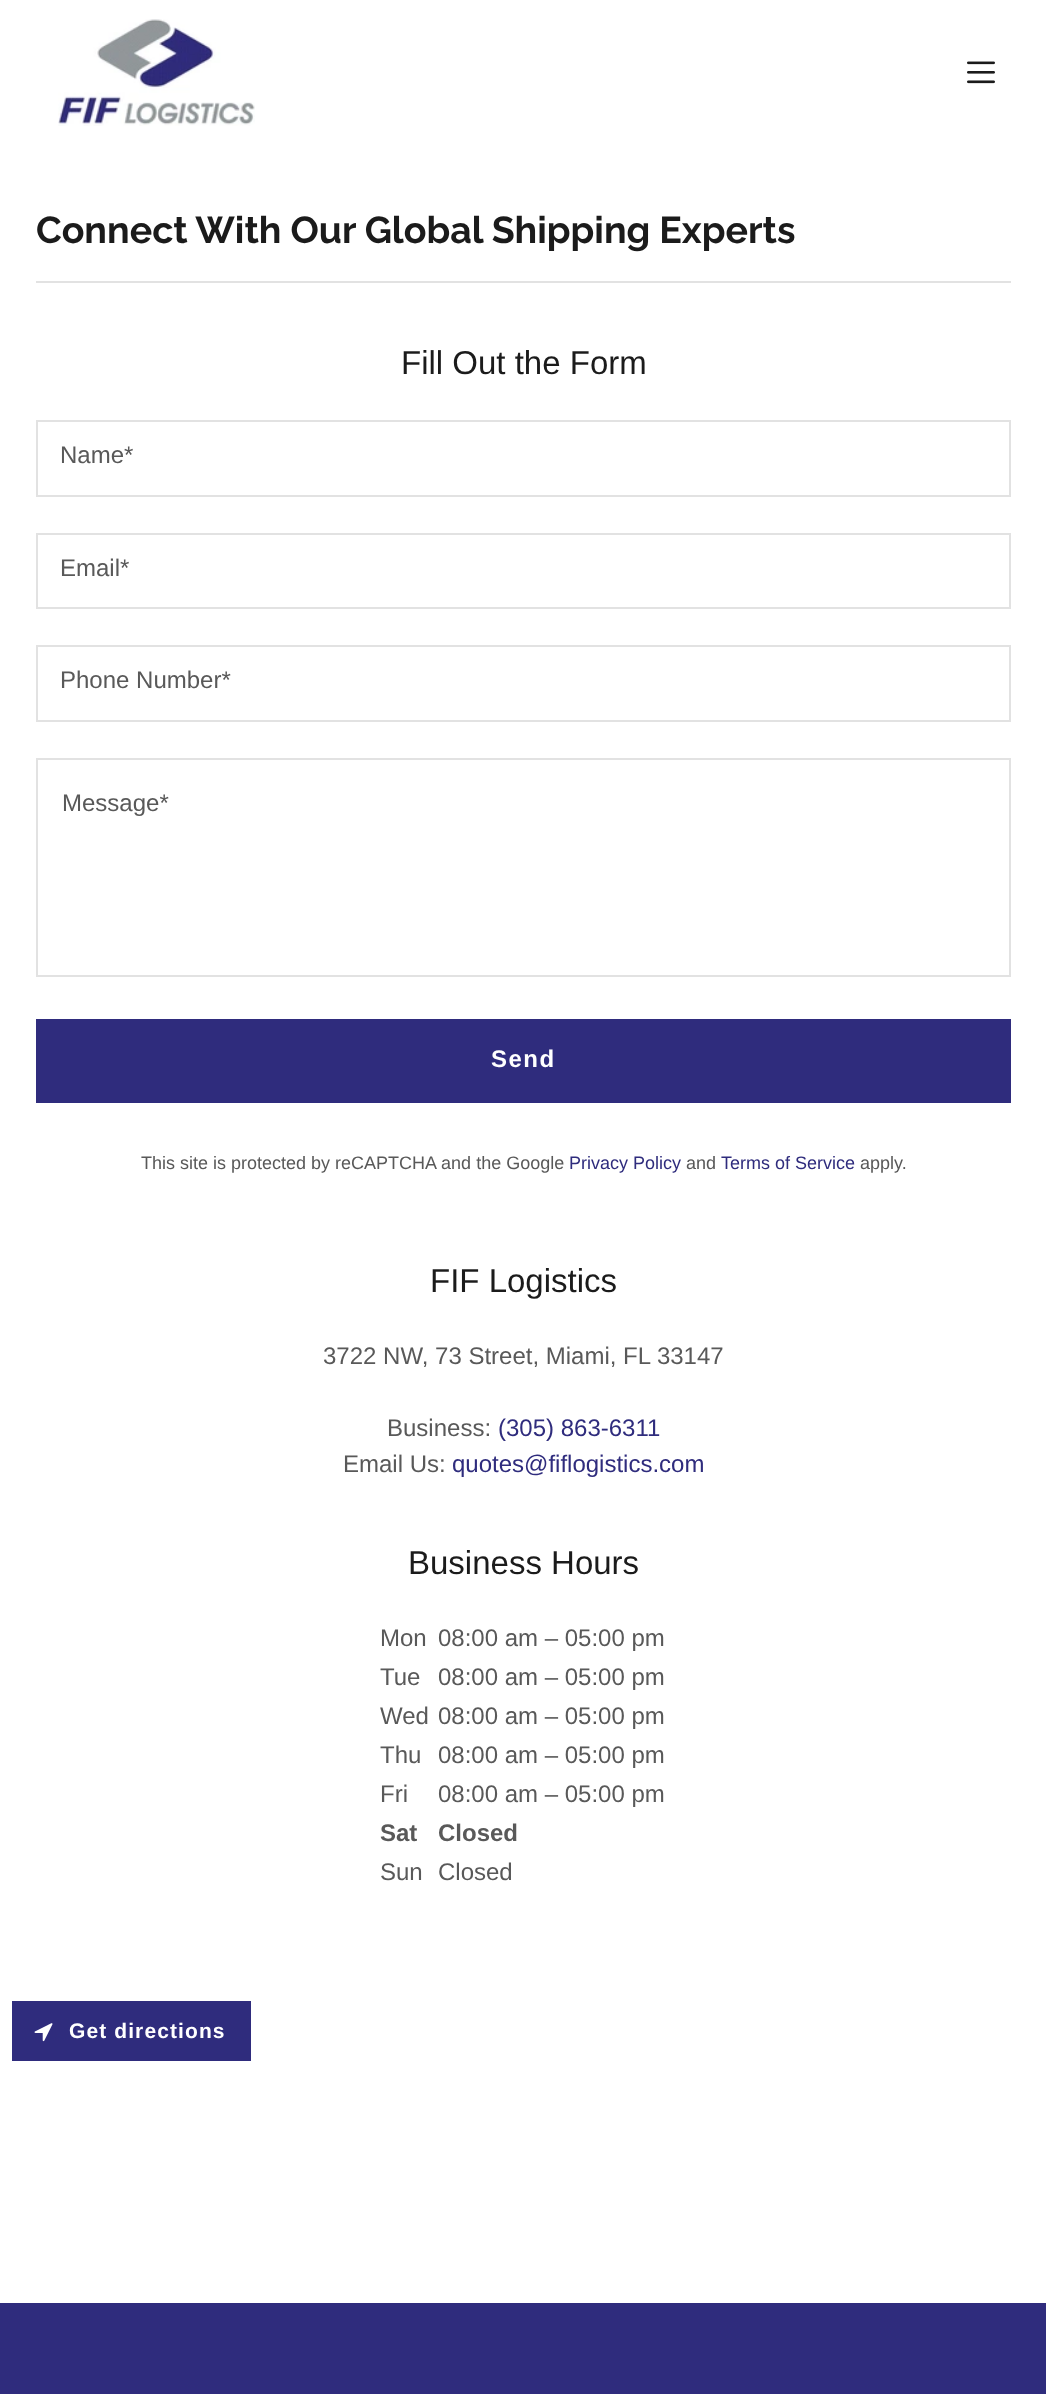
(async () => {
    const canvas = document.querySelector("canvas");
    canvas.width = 1046;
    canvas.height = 2394;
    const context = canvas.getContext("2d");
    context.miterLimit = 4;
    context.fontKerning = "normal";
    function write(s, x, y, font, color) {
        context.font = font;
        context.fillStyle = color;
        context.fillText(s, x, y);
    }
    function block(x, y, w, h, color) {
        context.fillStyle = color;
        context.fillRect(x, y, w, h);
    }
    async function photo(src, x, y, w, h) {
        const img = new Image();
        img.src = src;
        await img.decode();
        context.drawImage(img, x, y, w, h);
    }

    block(0, 0, 1046, 2394, "rgb(47, 44, 125)");
    block(0, 0, 1046, 2303, "rgb(255, 255, 255)");
    await photo("media/1.png", 58, 19, 197, 107);
    await photo("media/2.png", 967, 61, 28, 23);
    write("Connect With Our Global Shipping Experts", 36, 243, "bold 37.5px Raleway", "rgb(27, 27, 27)");
    block(36, 281, 975, 2, "rgb(226, 226, 226)");
    write("Fill Out the Form", 401, 374, "33px Liberation Sans", "rgb(27, 27, 27)");
    context.strokeStyle = "rgb(226, 226, 226)";
    context.lineWidth = 2;
    context.strokeRect(37, 421, 973, 75);
    write("Name*", 60, 463, "24px Liberation Sans", "rgb(89, 89, 89)");
    context.strokeRect(37, 534, 973, 74);
    write("Email*", 60, 576, "24px Liberation Sans", "rgb(89, 89, 89)");
    context.strokeRect(37, 646, 973, 75);
    write("Phone Number*", 60, 688, "24px Liberation Sans", "rgb(89, 89, 89)");
    context.strokeRect(37, 759, 973, 217);
    write("Message*", 62, 811, "24px Liberation Sans", "rgb(89, 89, 89)");
    block(36, 1019, 975, 84, "rgb(47, 44, 125)");
    context.letterSpacing = "1.5px";
    write("Send", 491, 1067, "bold 24px Liberation Sans", "rgb(255, 255, 255)");
    context.letterSpacing = "0px";
    write("This site is protected by reCAPTCHA and the Google", 141, 1169, "18px Liberation Sans", "rgb(89, 89, 89)");
    write("Privacy Policy", 569, 1169, "18px Liberation Sans", "rgb(47, 44, 125)");
    write("and", 686, 1169, "18px Liberation Sans", "rgb(89, 89, 89)");
    write("Terms of Service", 721, 1169, "18px Liberation Sans", "rgb(47, 44, 125)");
    write("apply.", 860, 1169, "18px Liberation Sans", "rgb(89, 89, 89)");
    write("FIF Logistics", 430, 1292, "33px Liberation Sans", "rgb(27, 27, 27)");
    write("3722 NW, 73 Street, Miami, FL 33147", 323, 1364, "24px Liberation Sans", "rgb(89, 89, 89)");
    write("Business:", 387, 1436, "24px Liberation Sans", "rgb(89, 89, 89)");
    write("(305) 863-6311", 498, 1436, "24px Liberation Sans", "rgb(47, 44, 125)");
    write("Email Us:", 343, 1472, "24px Liberation Sans", "rgb(89, 89, 89)");
    write("quotes@fiflogistics.com", 452, 1472, "24px Liberation Sans", "rgb(47, 44, 125)");
    write("Business Hours", 408, 1574, "33px Liberation Sans", "rgb(27, 27, 27)");
    write("Mon", 380, 1646, "24px Liberation Sans", "rgb(89, 89, 89)");
    write("08:00 am – 05:00 pm", 438, 1646, "24px Liberation Sans", "rgb(89, 89, 89)");
    write("Tue", 380, 1685, "24px Liberation Sans", "rgb(89, 89, 89)");
    write("08:00 am – 05:00 pm", 438, 1685, "24px Liberation Sans", "rgb(89, 89, 89)");
    write("Wed", 380, 1724, "24px Liberation Sans", "rgb(89, 89, 89)");
    write("08:00 am – 05:00 pm", 438, 1724, "24px Liberation Sans", "rgb(89, 89, 89)");
    write("Thu", 380, 1763, "24px Liberation Sans", "rgb(89, 89, 89)");
    write("08:00 am – 05:00 pm", 438, 1763, "24px Liberation Sans", "rgb(89, 89, 89)");
    write("Fri", 380, 1802, "24px Liberation Sans", "rgb(89, 89, 89)");
    write("08:00 am – 05:00 pm", 438, 1802, "24px Liberation Sans", "rgb(89, 89, 89)");
    write("Sat", 380, 1841, "bold 24px Liberation Sans", "rgb(89, 89, 89)");
    write("Closed", 438, 1841, "bold 24px Liberation Sans", "rgb(89, 89, 89)");
    write("Sun", 380, 1880, "24px Liberation Sans", "rgb(89, 89, 89)");
    write("Closed", 438, 1880, "24px Liberation Sans", "rgb(89, 89, 89)");
    block(12, 2001, 239, 60, "rgb(47, 44, 125)");
    await photo("media/3.png", 34, 2023, 19, 19);
    context.letterSpacing = "1.1px";
    write("Get directions", 69, 2038, "bold 21px Liberation Sans", "rgb(255, 255, 255)");
})();
